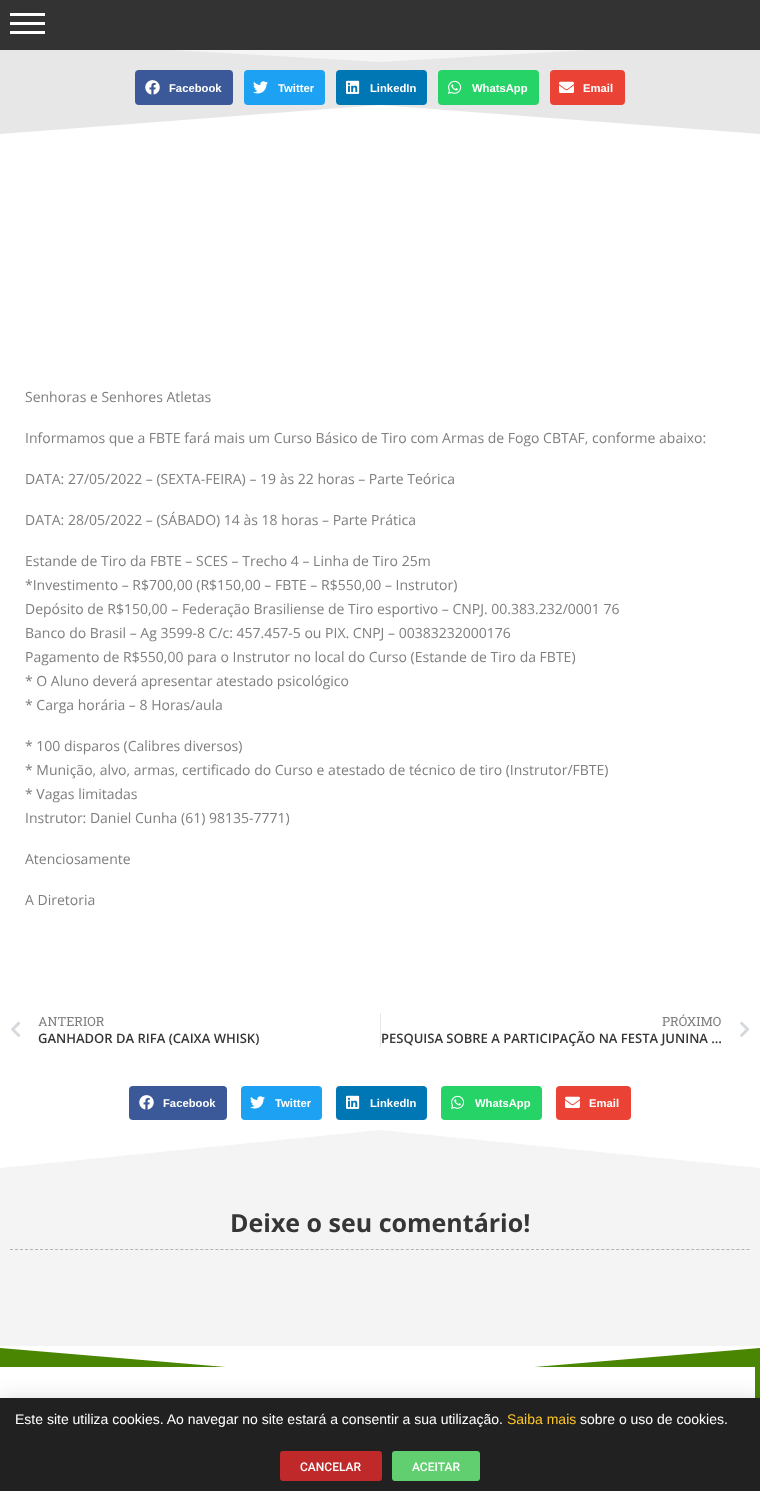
(async () => {
    const canvas = document.querySelector("canvas");
    canvas.width = 760;
    canvas.height = 1491;
    const context = canvas.getContext("2d");
    context.miterLimit = 4;
    context.fontKerning = "normal";
    function write(s, x, y, font, color) {
        context.font = font;
        context.fillStyle = color;
        context.fillText(s, x, y);
    }
    function block(x, y, w, h, color) {
        context.fillStyle = color;
        context.fillRect(x, y, w, h);
    }
    function card(x, y, w, h, r, color) {
        context.fillStyle = color;
        context.beginPath();
        context.roundRect(x, y, w, h, r);
        context.fill();
    }
    async function photo(src, x, y, w, h) {
        const img = new Image();
        img.src = src;
        await img.decode();
        context.drawImage(img, x, y, w, h);
    }

    block(0, 0, 760, 1491, "rgb(255, 255, 255)");
    block(0, 50, 760, 84, "rgb(231, 231, 231)");
    context.fillStyle = "rgb(245, 245, 245)";
    context.beginPath();
    context.moveTo(380, 62);
    context.lineTo(-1, 40);
    context.lineTo(-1, 39);
    context.lineTo(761, 39);
    context.lineTo(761, 40);
    context.closePath();
    context.fill();
    block(0, 0, 760, 50, "rgb(51, 51, 51)");
    block(10, 22, 35, 3, "rgb(255, 255, 255)");
    block(10, 13, 35, 3, "rgb(255, 255, 255)");
    block(10, 31, 35, 3, "rgb(255, 255, 255)");
    card(135, 70, 98, 35, 4, "rgb(59, 89, 152)");
    await photo("media/1.png", 145, 80, 15, 15);
    write("Facebook", 169, 92, "bold 11.25px Liberation Sans", "rgb(255, 255, 255)");
    card(244, 70, 81, 35, 4, "rgb(29, 161, 242)");
    await photo("media/2.png", 253, 81, 15, 13);
    write("Twitter", 278, 92, "bold 11.25px Liberation Sans", "rgb(255, 255, 255)");
    card(336, 70, 91, 35, 4, "rgb(0, 119, 181)");
    await photo("media/3.png", 346, 80, 14, 14);
    write("LinkedIn", 370, 92, "bold 11.25px Liberation Sans", "rgb(255, 255, 255)");
    card(438, 70, 101, 35, 4, "rgb(37, 211, 102)");
    await photo("media/4.png", 448, 80, 14, 14);
    write("WhatsApp", 472, 92, "bold 11.25px Liberation Sans", "rgb(255, 255, 255)");
    card(550, 70, 75, 35, 4, "rgb(234, 67, 53)");
    await photo("media/5.png", 559, 81, 15, 12);
    write("Email", 583, 92, "bold 11.25px Liberation Sans", "rgb(255, 255, 255)");
    context.beginPath();
    context.moveTo(380, 105);
    context.lineTo(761, 134);
    context.lineTo(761, 136);
    context.lineTo(-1, 136);
    context.lineTo(-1, 134);
    context.closePath();
    context.fill();
    write("Senhoras e Senhores Atletas", 25, 402, "14px Open Sans", "rgb(126, 126, 126)");
    write("Informamos que a FBTE fará mais um Curso Básico de Tiro com Armas de Fogo CBTAF, conforme abaixo:", 25, 443, "14px Open Sans", "rgb(126, 126, 126)");
    write("DATA: 27/05/2022 – (SEXTA-FEIRA) – 19 às 22 horas – Parte Teórica", 25, 484, "14px Open Sans", "rgb(126, 126, 126)");
    write("DATA: 28/05/2022 – (SÁBADO) 14 às 18 horas – Parte Prática", 25, 525, "14px Open Sans", "rgb(126, 126, 126)");
    write("Estande de Tiro da FBTE – SCES – Trecho 4 – Linha de Tiro 25m", 25, 566, "14px Open Sans", "rgb(126, 126, 126)");
    write("*Investimento – R$700,00 (R$150,00 – FBTE – R$550,00 – Instrutor)", 25, 590, "14px Open Sans", "rgb(126, 126, 126)");
    write("Depósito de R$150,00 – Federação Brasiliense de Tiro esportivo – CNPJ. 00.383.232/0001 76", 25, 614, "14px Open Sans", "rgb(126, 126, 126)");
    write("Banco do Brasil – Ag 3599-8 C/c: 457.457-5 ou PIX. CNPJ – 00383232000176", 25, 638, "14px Open Sans", "rgb(126, 126, 126)");
    write("Pagamento de R$550,00 para o Instrutor no local do Curso (Estande de Tiro da FBTE)", 25, 662, "14px Open Sans", "rgb(126, 126, 126)");
    write("* O Aluno deverá apresentar atestado psicológico", 25, 686, "14px Open Sans", "rgb(126, 126, 126)");
    write("* Carga horária – 8 Horas/aula", 25, 710, "14px Open Sans", "rgb(126, 126, 126)");
    write("* 100 disparos (Calibres diversos)", 25, 751, "14px Open Sans", "rgb(126, 126, 126)");
    write("* Munição, alvo, armas, certificado do Curso e atestado de técnico de tiro (Instrutor/FBTE)", 25, 775, "14px Open Sans", "rgb(126, 126, 126)");
    write("* Vagas limitadas", 25, 799, "14px Open Sans", "rgb(126, 126, 126)");
    write("Instrutor: Daniel Cunha (61) 98135-7771)", 25, 823, "14px Open Sans", "rgb(126, 126, 126)");
    write("Atenciosamente", 25, 864, "14px Open Sans", "rgb(126, 126, 126)");
    write("A Diretoria", 25, 905, "14px Open Sans", "rgb(126, 126, 126)");
    await photo("media/6.png", 11, 1021, 10, 16);
    write("ANTERIOR", 38, 1026, "12.75px Roboto Slab", "rgb(126, 126, 126)");
    write("GANHADOR DA RIFA (CAIXA WHISK)", 38, 1043, "600 13px Open Sans", "rgb(54, 54, 54)");
    block(380, 1013, 1, 34, "rgb(230, 230, 230)");
    write("PRÓXIMO", 662, 1026, "12.75px Roboto Slab", "rgb(126, 126, 126)");
    write("PESQUISA SOBRE A PARTICIPAÇÃO NA FESTA JUNINA …", 381, 1043, "600 13px Open Sans", "rgb(54, 54, 54)");
    await photo("media/7.png", 740, 1021, 10, 16);
    card(129, 1086, 98, 34, 4, "rgb(59, 89, 152)");
    await photo("media/1.png", 139, 1095, 15, 15);
    write("Facebook", 163, 1107, "bold 11.25px Liberation Sans", "rgb(255, 255, 255)");
    card(241, 1086, 81, 34, 4, "rgb(29, 161, 242)");
    await photo("media/2.png", 250, 1096, 15, 13);
    write("Twitter", 275, 1107, "bold 11.25px Liberation Sans", "rgb(255, 255, 255)");
    card(336, 1086, 91, 34, 4, "rgb(0, 119, 181)");
    await photo("media/3.png", 346, 1095, 14, 14);
    write("LinkedIn", 370, 1107, "bold 11.25px Liberation Sans", "rgb(255, 255, 255)");
    card(441, 1086, 101, 34, 4, "rgb(37, 211, 102)");
    await photo("media/4.png", 451, 1095, 14, 14);
    write("WhatsApp", 475, 1107, "bold 11.25px Liberation Sans", "rgb(255, 255, 255)");
    card(556, 1086, 75, 34, 4, "rgb(234, 67, 53)");
    await photo("media/5.png", 565, 1096, 15, 12);
    write("Email", 589, 1107, "bold 11.25px Liberation Sans", "rgb(255, 255, 255)");
    block(0, 1130, 760, 216, "rgb(244, 244, 244)");
    context.save();
    context.beginPath();
    context.rect(0, 1129, 760, 40);
    context.clip();
    context.fillStyle = "rgb(255, 255, 255)";
    context.beginPath();
    context.moveTo(380, 1130);
    context.lineTo(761, 1168);
    context.lineTo(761, 1128);
    context.lineTo(-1, 1128);
    context.lineTo(-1, 1168);
    context.closePath();
    context.fill();
    context.restore();
    context.beginPath();
    context.moveTo(10, 1249.5);
    context.lineTo(750, 1249.5);
    context.strokeStyle = "rgb(179, 179, 179)";
    context.setLineDash([3, 2.01]);
    context.stroke();
    write("Deixe o seu comentário!", 230, 1232, "bold 25px Open Sans", "rgb(54, 54, 54)");
    block(0, 1348, 760, 50, "rgb(74, 134, 1)");
    context.fillStyle = "rgb(255, 255, 255)";
    context.beginPath();
    context.moveTo(380, 1380);
    context.lineTo(-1, 1348);
    context.lineTo(-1, 1346);
    context.lineTo(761, 1346);
    context.lineTo(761, 1348);
    context.closePath();
    context.fill();
    await photo("media/8.png", 0, 1367, 755, 31);
    context.fillStyle = "rgba(0, 0, 0, 0.2)";
    context.filter = "blur(11.5px)";
    context.beginPath();
    context.rect(-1, 1403, 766, 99);
    context.fill();
    context.filter = "none";
    block(0, 1398, 760, 93, "rgb(33, 33, 33)");
    write("Este site utiliza cookies. Ao navegar no site estará a consentir a sua utilização.", 15, 1424, "14px Liberation Sans", "rgb(255, 255, 255)");
    write("Saiba mais", 507, 1424, "14px Liberation Sans", "rgb(254, 199, 38)");
    write("sobre o uso de cookies.", 580, 1424, "14px Liberation Sans", "rgb(255, 255, 255)");
    card(280, 1451, 102, 30, 3, "rgb(191, 41, 41)");
    write("CANCELAR", 300, 1471, "500 12px Roboto", "rgb(255, 255, 255)");
    card(392, 1451, 88, 30, 3, "rgb(97, 206, 112)");
    write("ACEITAR", 412, 1471, "500 12px Roboto", "rgb(255, 255, 255)");
})();
